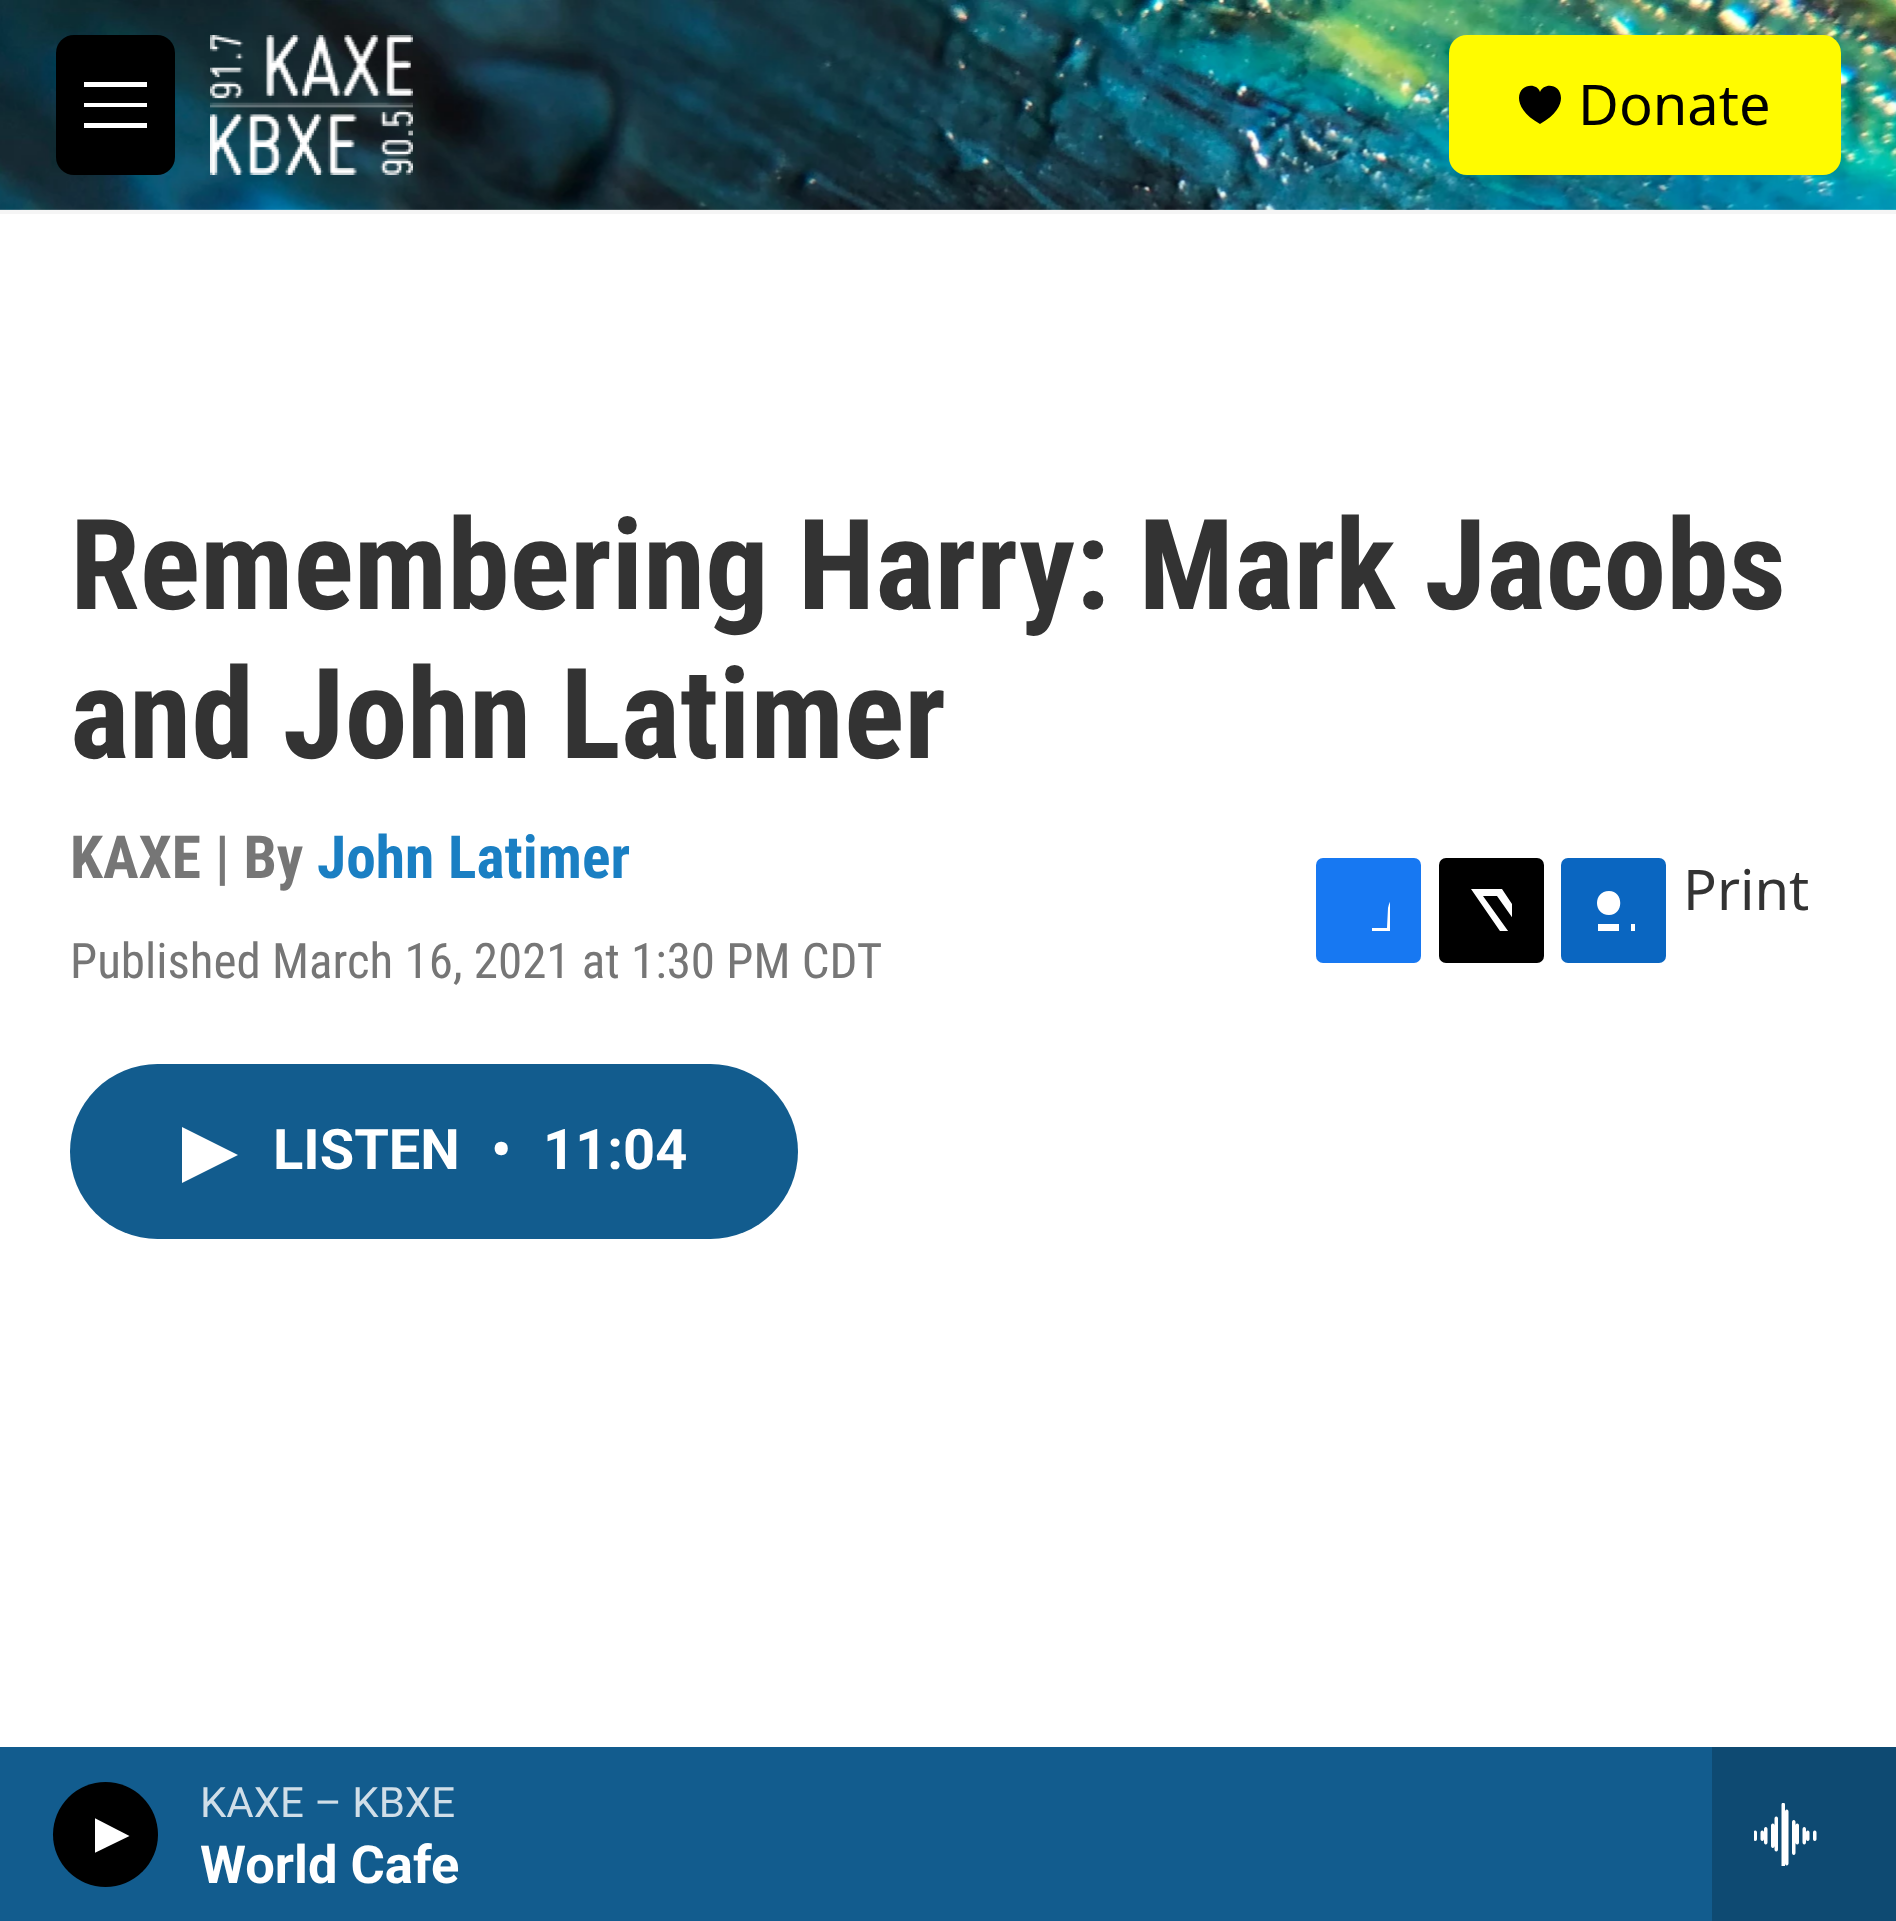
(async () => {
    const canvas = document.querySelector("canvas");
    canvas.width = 1896;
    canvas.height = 1921;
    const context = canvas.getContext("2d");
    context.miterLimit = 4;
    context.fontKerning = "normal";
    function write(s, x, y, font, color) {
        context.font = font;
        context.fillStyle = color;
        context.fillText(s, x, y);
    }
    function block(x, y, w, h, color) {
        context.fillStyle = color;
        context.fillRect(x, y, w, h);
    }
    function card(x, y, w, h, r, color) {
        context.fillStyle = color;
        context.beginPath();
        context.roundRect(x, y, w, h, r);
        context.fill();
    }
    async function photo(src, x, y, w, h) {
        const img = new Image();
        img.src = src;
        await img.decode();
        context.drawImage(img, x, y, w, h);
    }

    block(0, 0, 1896, 1921, "rgb(255, 255, 255)");
    block(0, 210, 1896, 4, "rgb(245, 245, 245)");
    await photo("media/1.png", 0, 0, 1896, 210);
    card(56, 35, 119, 140, 18, "rgb(0, 0, 0)");
    context.fillStyle = "rgb(255, 255, 255)";
    context.beginPath();
    context.moveTo(84, 107);
    context.lineTo(84, 103);
    context.lineTo(147, 103);
    context.lineTo(147, 107);
    context.closePath();
    context.moveTo(84, 87);
    context.lineTo(84, 82);
    context.lineTo(147, 82);
    context.lineTo(147, 87);
    context.closePath();
    context.moveTo(84, 128);
    context.lineTo(84, 123);
    context.lineTo(147, 123);
    context.lineTo(147, 128);
    context.closePath();
    context.fill("evenodd");
    await photo("media/2.png", 210, 35, 203, 140);
    card(1449, 35, 392, 140, 18, "rgb(255, 251, 0)");
    context.fillStyle = "rgb(0, 0, 0)";
    context.beginPath();
    context.moveTo(1540, 92);
    context.bezierCurveTo(1537, 82, 1519, 84, 1519, 98);
    context.bezierCurveTo(1519, 105, 1524, 115, 1540, 124);
    context.bezierCurveTo(1556, 115, 1561, 105, 1561, 98);
    context.bezierCurveTo(1561, 84, 1544, 82, 1540, 92);
    context.closePath();
    context.fill();
    write("Donate", 1578, 125, "56px Noto Sans", "rgb(0, 0, 0)");
    block(0, 1747, 1712, 174, "rgb(18, 92, 142)");
    context.fillStyle = "rgb(0, 0, 0)";
    context.beginPath();
    context.arc(105.5, 1834.5, 52.5, 0, Math.PI * 2);
    context.fill();
    context.save();
    context.beginPath();
    context.rect(95, 1817, 35, 38);
    context.clip();
    context.fillStyle = "rgb(255, 255, 255)";
    context.beginPath();
    context.moveTo(94.5, 1818);
    context.lineTo(129.5, 1836);
    context.lineTo(94.5, 1853);
    context.closePath();
    context.fill();
    context.restore();
    write("KAXE – KBXE", 200, 1817, "42px Roboto", "rgb(208, 222, 232)");
    write("World Cafe", 200, 1883, "bold 52.5px Roboto", "rgb(255, 255, 255)");
    block(1712, 1747, 184, 174, "rgb(14, 74, 114)");
    await photo("media/3.png", 1754, 1803, 63, 63);
    write("Remembering Harry: Mark Jacobs", 70, 609, "bold 126px Roboto Condensed", "rgb(51, 51, 51)");
    write("and John Latimer", 70, 758, "bold 126px Roboto Condensed", "rgb(51, 51, 51)");
    write("KAXE | By", 70, 878, "bold 59.5px Roboto Condensed", "rgb(118, 118, 118)");
    write("John Latimer", 317, 878, "bold 59.5px Roboto Condensed", "rgb(26, 127, 195)");
    write("Published March 16, 2021 at 1:30 PM CDT", 70, 978, "49px Roboto Condensed", "rgb(118, 118, 118)");
    card(1316, 858, 105, 105, 7, "rgb(23, 120, 242)");
    context.save();
    context.beginPath();
    context.rect(1348, 889, 42, 42);
    context.clip();
    context.fillStyle = "rgb(255, 255, 255)";
    context.beginPath();
    context.moveTo(1406, 963);
    context.lineTo(1387, 963);
    context.lineTo(1387, 945);
    context.lineTo(1372, 945);
    context.lineTo(1372, 928);
    context.lineTo(1387, 928);
    context.lineTo(1388, 908);
    context.bezierCurveTo(1391, 891, 1407, 889, 1421, 891);
    context.lineTo(1421, 907);
    context.bezierCurveTo(1406, 907, 1406, 909, 1406, 921);
    context.lineTo(1406, 928);
    context.lineTo(1421, 928);
    context.lineTo(1421, 936);
    context.lineTo(1420, 945);
    context.lineTo(1406, 945);
    context.closePath();
    context.fill();
    context.restore();
    card(1439, 858, 105, 105, 7, "rgb(0, 0, 0)");
    context.save();
    context.beginPath();
    context.rect(1470, 889, 42, 42);
    context.clip();
    context.fillStyle = "rgb(255, 255, 255)";
    context.beginPath();
    context.moveTo(1532, 933);
    context.lineTo(1544, 950);
    context.bezierCurveTo(1544, 954, 1545, 958, 1542, 960);
    context.lineTo(1497, 896);
    context.lineTo(1483, 896);
    context.lineTo(1531, 963);
    context.lineTo(1522, 963);
    context.lineTo(1515, 953);
    context.lineTo(1506, 963);
    context.lineTo(1497, 963);
    context.lineTo(1511, 947);
    context.lineTo(1471, 889);
    context.lineTo(1502, 889);
    context.lineTo(1528, 928);
    context.lineTo(1544, 909);
    context.lineTo(1544, 919);
    context.closePath();
    context.fill();
    context.restore();
    card(1561, 858, 105, 105, 7, "rgb(10, 102, 193)");
    context.save();
    context.beginPath();
    context.rect(1593, 889, 42, 42);
    context.clip();
    context.fillStyle = "rgb(255, 255, 255)";
    context.beginPath();
    context.moveTo(1619, 963);
    context.lineTo(1598, 963);
    context.lineTo(1598, 924);
    context.lineTo(1619, 924);
    context.closePath();
    context.moveTo(1651, 963);
    context.lineTo(1631, 963);
    context.lineTo(1631, 924);
    context.lineTo(1651, 924);
    context.lineTo(1651, 933);
    context.bezierCurveTo(1654, 927, 1659, 923, 1666, 922);
    context.lineTo(1666, 940);
    context.bezierCurveTo(1652, 937, 1651, 953, 1651, 963);
    context.closePath();
    context.moveTo(1609, 915);
    context.bezierCurveTo(1624, 915, 1624, 891, 1609, 891);
    context.bezierCurveTo(1593, 891, 1593, 915, 1609, 915);
    context.closePath();
    context.fill("evenodd");
    context.restore();
    write("Print", 1683, 910, "56px Noto Sans", "rgb(51, 51, 51)");
    card(70, 1064, 728, 175, 87.5, "rgb(18, 92, 142)");
    context.fillStyle = "rgb(255, 255, 255)";
    context.beginPath();
    context.moveTo(182, 1127);
    context.lineTo(238, 1155);
    context.lineTo(182, 1183);
    context.closePath();
    context.fill();
    write("LISTEN", 273, 1169, "bold 56px Roboto", "rgb(255, 255, 255)");
    write("•", 491, 1169, "bold 56px Roboto", "rgb(255, 255, 255)");
    write("11:04", 543, 1169, "bold 56px Roboto", "rgb(255, 255, 255)");
})();
